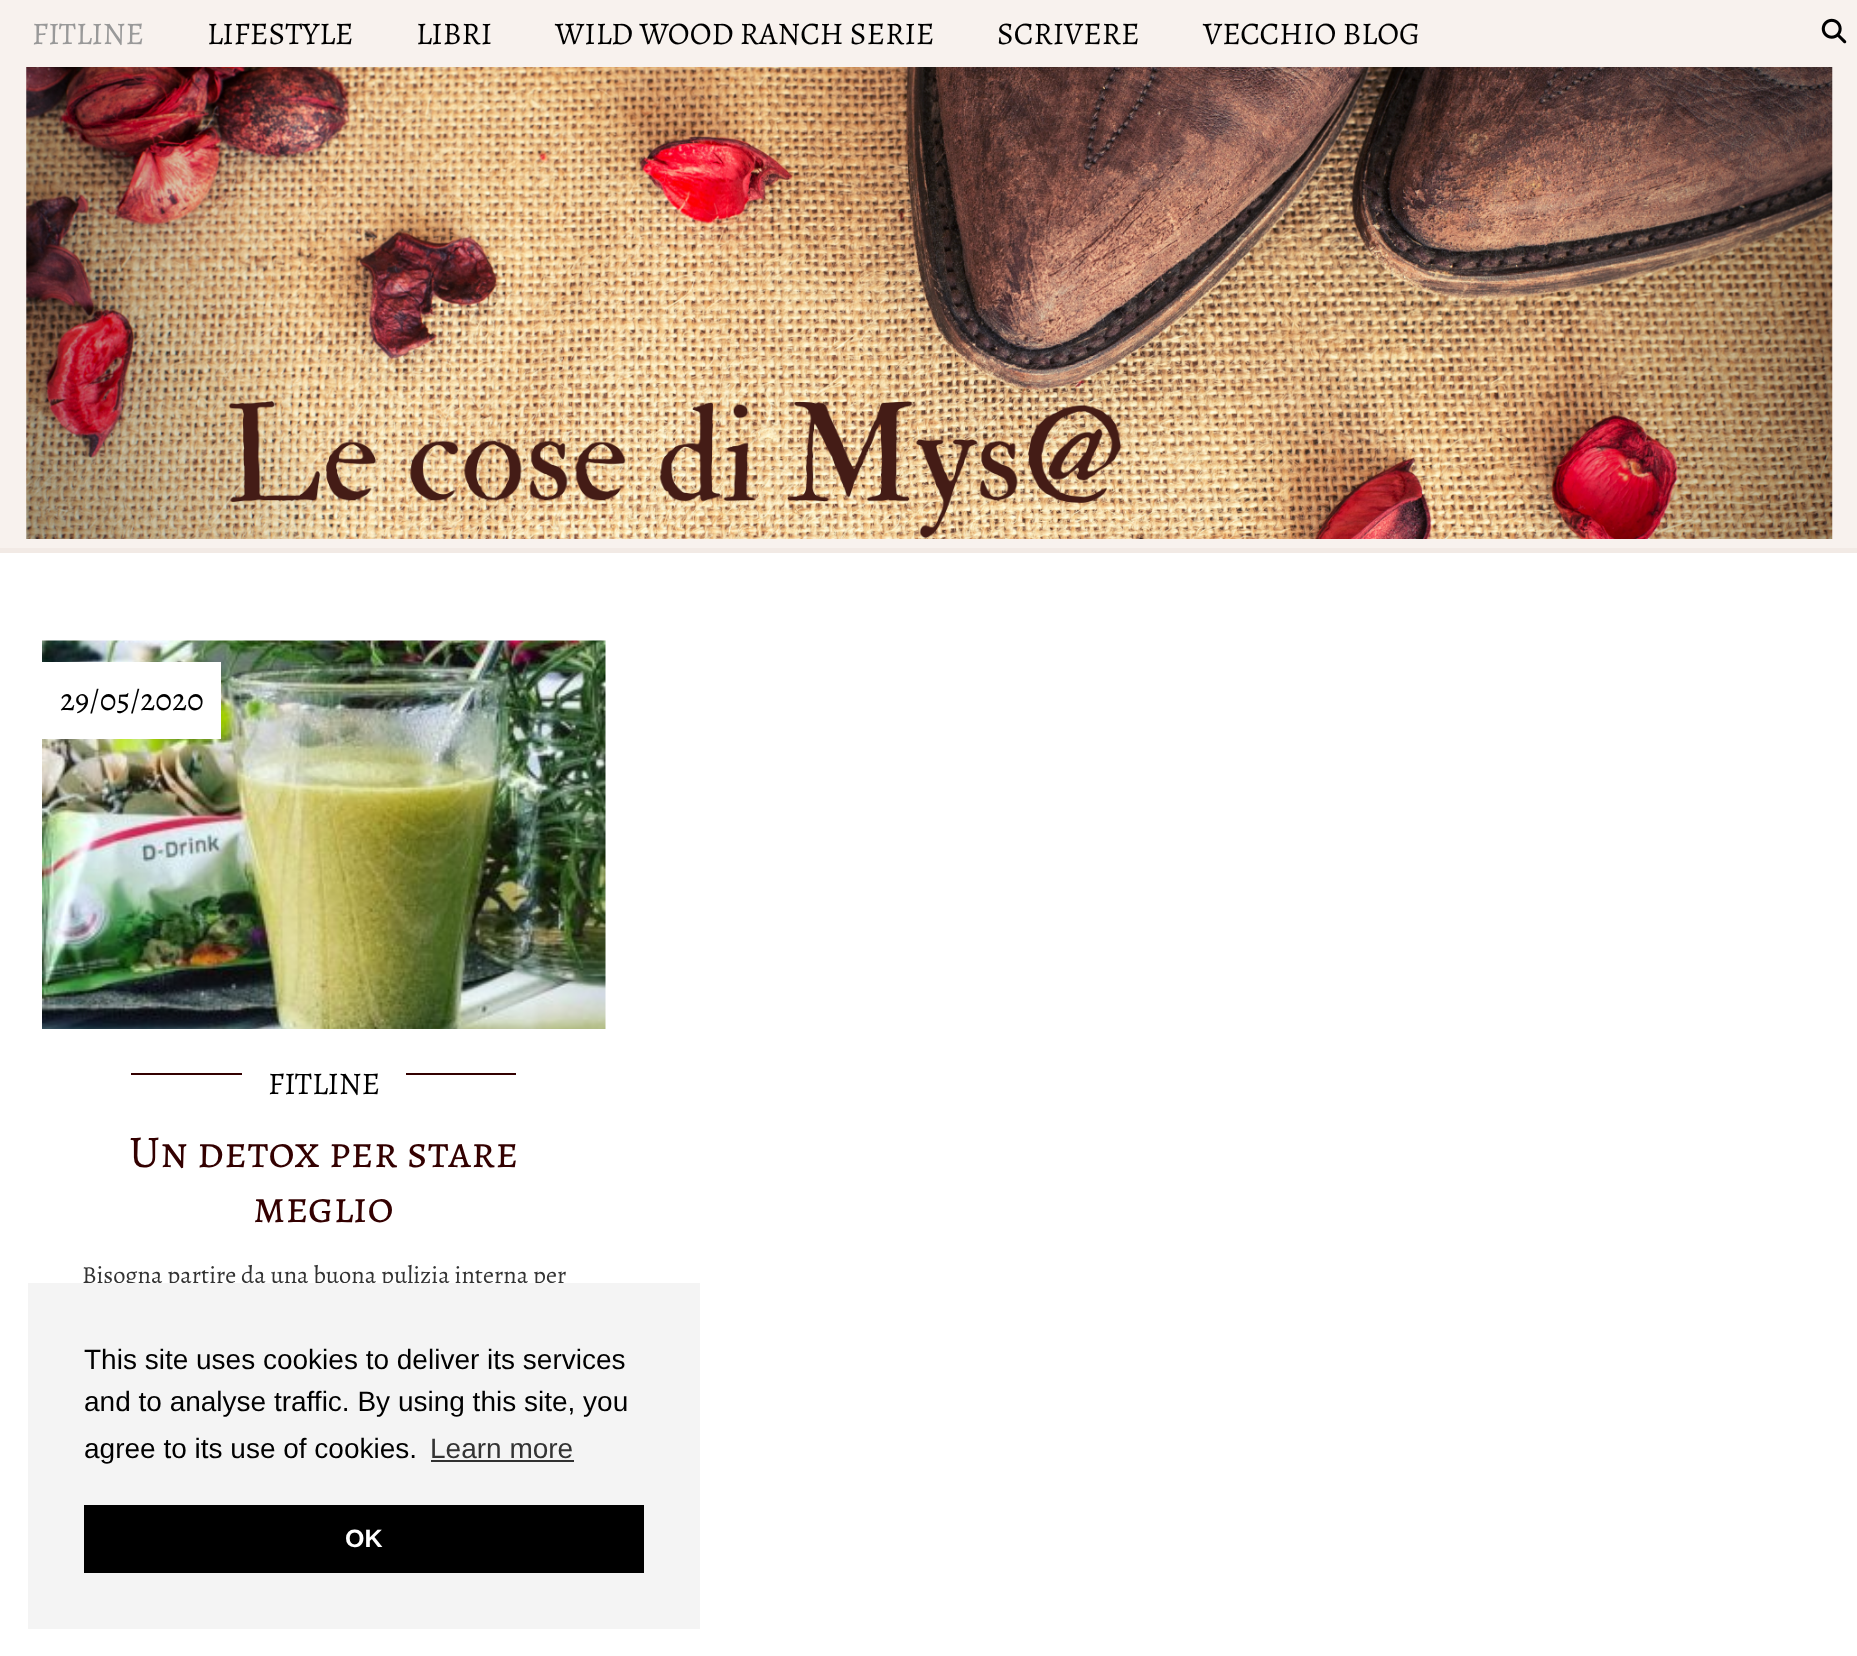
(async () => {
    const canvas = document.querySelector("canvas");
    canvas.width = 1857;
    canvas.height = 1656;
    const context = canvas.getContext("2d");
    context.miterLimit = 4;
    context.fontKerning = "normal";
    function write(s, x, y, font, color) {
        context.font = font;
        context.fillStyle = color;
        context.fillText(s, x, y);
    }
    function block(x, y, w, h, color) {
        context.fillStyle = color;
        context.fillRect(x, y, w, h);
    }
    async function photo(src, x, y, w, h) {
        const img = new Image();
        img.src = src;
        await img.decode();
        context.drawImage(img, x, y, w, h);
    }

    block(0, 0, 1857, 1656, "rgb(255, 255, 255)");
    block(0, 0, 1857, 548, "rgb(248, 242, 238)");
    block(0, 548, 1857, 5, "rgb(242, 234, 229)");
    await photo("media/1.png", 26, 67, 1807, 472);
    write("FITLINE", 32, 44, "31.5px Alegreya SC", "rgb(153, 153, 153)");
    write("LIFESTYLE", 207, 44, "31.5px Alegreya SC", "rgb(0, 0, 0)");
    write("LIBRI", 416, 44, "31.5px Alegreya SC", "rgb(0, 0, 0)");
    write("WILD WOOD RANCH SERIE", 555, 44, "31.5px Alegreya SC", "rgb(0, 0, 0)");
    write("SCRIVERE", 997, 44, "31.5px Alegreya SC", "rgb(0, 0, 0)");
    write("VECCHIO BLOG", 1203, 44, "31.5px Alegreya SC", "rgb(0, 0, 0)");
    await photo("media/2.png", 1821, 18, 26, 26);
    await photo("media/3.png", 42, 640, 564, 389);
    block(42, 662, 179, 77, "rgb(255, 255, 255)");
    write("29/05/2020", 60, 710, "31.5px Alegreya", "rgb(0, 0, 0)");
    block(131, 1073, 385, 2, "rgb(51, 0, 0)");
    block(242, 1073, 164, 2, "rgb(255, 255, 255)");
    write("FITLINE", 268, 1094, "31.5px Alegreya", "rgb(0, 0, 0)");
    write("Un detox per stare", 129, 1167, "45.5px Alegreya SC", "rgb(51, 0, 0)");
    write("meglio", 253, 1222, "45.5px Alegreya SC", "rgb(51, 0, 0)");
    write("Bisogna partire da una buona pulizia interna per", 82, 1283, "24.5px Alegreya", "rgb(51, 51, 51)");
    block(28, 1283, 672, 346, "rgb(244, 244, 244)");
    write("This site uses cookies to deliver its services", 84, 1369, "28px Liberation Sans", "rgb(0, 0, 0)");
    write("and to analyse traffic. By using this site, you", 84, 1411, "28px Liberation Sans", "rgb(0, 0, 0)");
    write("agree to its use of cookies.", 84, 1458, "28px Liberation Sans", "rgb(0, 0, 0)");
    write("Learn more", 430, 1458, "28px Liberation Sans", "rgb(51, 51, 51)");
    block(431, 1460, 143, 2, "rgb(49, 49, 49)");
    block(84, 1505, 560, 68, "rgb(0, 0, 0)");
    write("OK", 345, 1547, "bold 25px Liberation Sans", "rgb(255, 255, 255)");
})();
